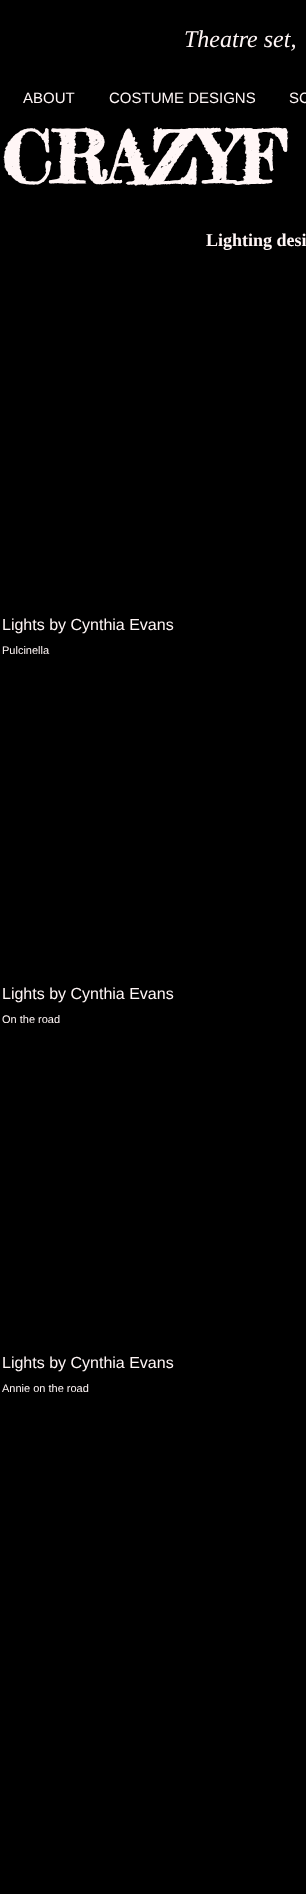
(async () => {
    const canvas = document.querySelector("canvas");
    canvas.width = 306;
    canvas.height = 1894;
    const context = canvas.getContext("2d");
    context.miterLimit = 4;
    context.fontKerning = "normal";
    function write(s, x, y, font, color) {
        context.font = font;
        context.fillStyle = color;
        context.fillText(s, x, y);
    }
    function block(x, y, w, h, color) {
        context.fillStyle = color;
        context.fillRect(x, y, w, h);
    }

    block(0, 0, 306, 1894, "rgb(0, 0, 0)");
    write("Theatre set,", 184, 47, "italic 24px Liberation Serif", "rgb(255, 246, 246)");
    write("ABOUT", 23, 103, "15px Liberation Sans", "rgb(255, 246, 246)");
    write("COSTUME DESIGNS", 109, 103, "15px Liberation Sans", "rgb(255, 246, 246)");
    write("SC", 289, 103, "15px Liberation Sans", "rgb(255, 246, 246)");
    write("CRAZYF", 2, 184, "bold 72px Fredericka the Great", "rgb(255, 246, 246)");
    write("Lighting desi", 206, 246, "bold 18px Liberation Serif", "rgb(255, 246, 246)");
    write("Lights by Cynthia Evans", 2, 630, "16px Liberation Sans", "rgb(255, 246, 246)");
    write("Pulcinella", 2, 654, "11px Liberation Sans", "rgb(255, 246, 246)");
    write("Lights by Cynthia Evans", 2, 999, "16px Liberation Sans", "rgb(255, 246, 246)");
    write("On the road", 2, 1023, "11px Liberation Sans", "rgb(255, 246, 246)");
    write("Lights by Cynthia Evans", 2, 1368, "16px Liberation Sans", "rgb(255, 246, 246)");
    write("Annie on the road", 2, 1392, "11px Liberation Sans", "rgb(255, 246, 246)");
})();
